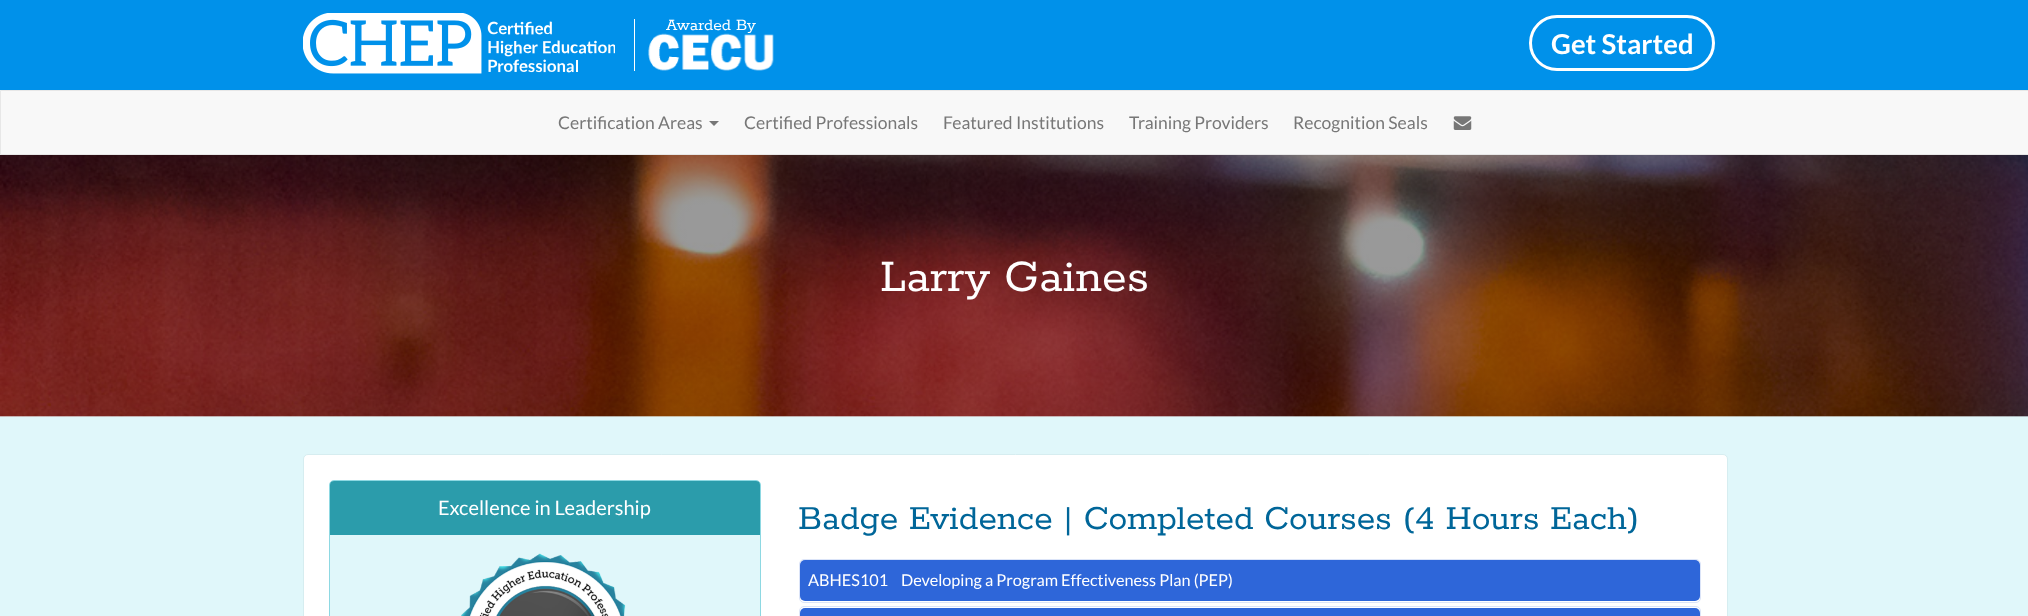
(async () => {
    const canvas = document.querySelector("canvas");
    canvas.width = 2028;
    canvas.height = 616;
    const context = canvas.getContext("2d");
    context.miterLimit = 4;
    context.fontKerning = "normal";
    function write(s, x, y, font, color) {
        context.font = font;
        context.fillStyle = color;
        context.fillText(s, x, y);
    }
    function block(x, y, w, h, color) {
        context.fillStyle = color;
        context.fillRect(x, y, w, h);
    }
    function card(x, y, w, h, r, color) {
        context.fillStyle = color;
        context.beginPath();
        context.roundRect(x, y, w, h, r);
        context.fill();
    }
    async function photo(src, x, y, w, h) {
        const img = new Image();
        img.src = src;
        await img.decode();
        context.drawImage(img, x, y, w, h);
    }

    block(0, 0, 2028, 616, "rgb(224, 247, 250)");
    block(0, 0, 2028, 90, "rgb(0, 145, 234)");
    await photo("media/1.png", 303, 13, 312, 61);
    block(634, 19, 1, 52, "rgb(255, 255, 255)");
    write("Awarded By", 666, 30, "17.5px Rokkitt", "rgb(255, 255, 255)");
    await photo("media/2.png", 648, 33, 126, 38);
    context.beginPath();
    context.roundRect(1530.5, 16.5, 183, 53, 26.5);
    context.strokeStyle = "rgb(255, 255, 255)";
    context.lineWidth = 3;
    context.stroke();
    write("Get Started", 1551, 54, "bold 27.5px Lato", "rgb(255, 255, 255)");
    context.fillStyle = "rgb(248, 248, 248)";
    context.beginPath();
    context.rect(0.5, 90.5, 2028, 64);
    context.fill();
    context.strokeStyle = "rgb(231, 231, 231)";
    context.lineWidth = 1;
    context.stroke();
    write("Certification Areas", 558, 129, "17.5px Lato", "rgb(119, 119, 119)");
    context.beginPath();
    context.moveTo(709, 121);
    context.lineTo(719, 121);
    context.lineTo(714, 126);
    context.closePath();
    context.fill();
    write("Certified Professionals", 744, 129, "17.5px Lato", "rgb(119, 119, 119)");
    write("Featured Institutions", 943, 129, "17.5px Lato", "rgb(119, 119, 119)");
    write("Training Providers", 1129, 129, "17.5px Lato", "rgb(119, 119, 119)");
    write("Recognition Seals", 1293, 129, "17.5px Lato", "rgb(119, 119, 119)");
    await photo("media/3.png", 1453, 116, 19, 14);
    await photo("media/4.png", 0, 155, 2028, 262);
    write("Larry Gaines", 880, 291, "50px Rokkitt", "rgb(255, 255, 255)");
    context.beginPath();
    context.roundRect(303.5, 454.5, 1424, 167, 4.5);
    context.fill();
    context.strokeStyle = "rgb(214, 237, 240)";
    context.stroke();
    context.fillStyle = "rgb(224, 247, 250)";
    context.beginPath();
    context.roundRect(329.5, 480.5, 431, 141, 4.5);
    context.fill();
    context.strokeStyle = "rgb(141, 216, 226)";
    context.stroke();
    context.fillStyle = "rgb(43, 156, 171)";
    context.beginPath();
    context.roundRect(330, 481, 430, 54, [4, 4, 0, 0]);
    context.fill();
    write("Excellence in Leadership", 438, 515, "20px Lato", "rgb(255, 255, 255)");
    await photo("media/5.png", 461, 553, 165, 63);
    write("Badge Evidence | Completed Courses (4 Hours Each)", 798, 529, "37.5px Rokkitt", "rgb(0, 102, 153)");
    context.beginPath();
    context.roundRect(799.5, 559.5, 901, 43, 4.5);
    context.strokeStyle = "rgb(219, 228, 248)";
    context.stroke();
    card(800, 560, 900, 41, 5, "rgb(46, 102, 217)");
    write("ABHES101", 808, 586, "16.25px Lato", "rgb(255, 255, 255)");
    write("Developing a Program Effectiveness Plan (PEP)", 901, 586, "16.25px Lato", "rgb(255, 255, 255)");
    context.beginPath();
    context.roundRect(799.5, 606.5, 901, 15, 4.5);
    context.stroke();
    card(800, 608, 900, 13, 5, "rgb(46, 102, 217)");
})();
